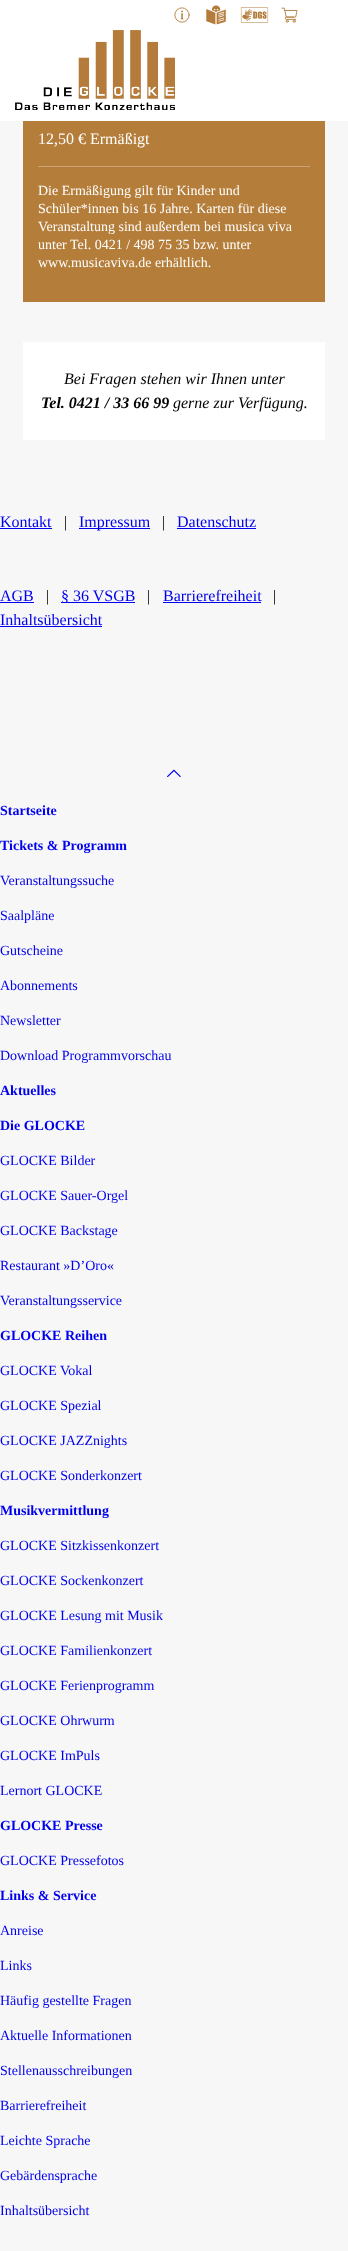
(async () => {
    const canvas = document.querySelector("canvas");
    canvas.width = 348;
    canvas.height = 2251;
    const context = canvas.getContext("2d");
    context.miterLimit = 4;
    context.fontKerning = "normal";
    function write(s, x, y, font, color) {
        context.font = font;
        context.fillStyle = color;
        context.fillText(s, x, y);
    }
    function block(x, y, w, h, color) {
        context.fillStyle = color;
        context.fillRect(x, y, w, h);
    }
    async function photo(src, x, y, w, h) {
        const img = new Image();
        img.src = src;
        await img.decode();
        context.drawImage(img, x, y, w, h);
    }

    block(0, 0, 348, 2251, "rgb(247, 247, 247)");
    block(0, 0, 348, 121, "rgb(255, 255, 255)");
    await photo("media/1.png", 174, 7, 16, 16);
    await photo("media/2.png", 206, 5, 20, 20);
    await photo("media/3.png", 240, 7, 29, 16);
    await photo("media/4.png", 281, 7, 17, 16);
    await photo("media/5.png", 15, 30, 160, 80);
    block(23, 121, 302, 181, "rgb(180, 125, 58)");
    block(38, 166, 272, 1, "rgb(203, 164, 117)");
    write("12,50 € Ermäßigt", 38, 144, "16px Liberation Serif", "rgb(255, 255, 255)");
    write("Die Ermäßigung gilt für Kinder und", 38, 195, "14px Liberation Serif", "rgb(255, 255, 255)");
    write("Schüler*innen bis 16 Jahre. Karten für diese", 38, 213, "14px Liberation Serif", "rgb(255, 255, 255)");
    write("Veranstaltung sind außerdem bei musica viva", 38, 231, "14px Liberation Serif", "rgb(255, 255, 255)");
    write("unter Tel. 0421 / 498 75 35 bzw. unter", 38, 249, "14px Liberation Serif", "rgb(255, 255, 255)");
    write("www.musicaviva.de erhältlich.", 38, 267, "14px Liberation Serif", "rgb(255, 255, 255)");
    block(23, 342, 302, 98, "rgb(255, 255, 255)");
    write("Bei Fragen stehen wir Ihnen unter", 64, 384, "italic 16px Liberation Serif", "rgb(0, 0, 0)");
    write("Tel. 0421 / 33 66 99", 41, 408, "italic bold 16px Liberation Serif", "rgb(0, 0, 0)");
    write("gerne zur Verfügung.", 173, 408, "italic 16px Liberation Serif", "rgb(0, 0, 0)");
    write("Kontakt", 0, 527, "16px Liberation Serif", "rgb(0, 0, 238)");
    block(0, 528, 52, 1, "rgb(0, 0, 238)");
    write("|", 64, 527, "16px Liberation Serif", "rgb(0, 0, 0)");
    block(79, 528, 71, 1, "rgb(0, 0, 238)");
    write("Impressum", 79, 527, "16px Liberation Serif", "rgb(0, 0, 238)");
    write("|", 162, 527, "16px Liberation Serif", "rgb(0, 0, 0)");
    write("Datenschutz", 177, 527, "16px Liberation Serif", "rgb(0, 0, 238)");
    block(177, 528, 79, 1, "rgb(0, 0, 238)");
    write("AGB", 0, 601, "16px Liberation Serif", "rgb(0, 0, 238)");
    block(0, 602, 34, 1, "rgb(0, 0, 238)");
    write("|", 46, 601, "16px Liberation Serif", "rgb(0, 0, 0)");
    block(61, 602, 74, 1, "rgb(0, 0, 238)");
    write("§ 36 VSGB", 61, 601, "16px Liberation Serif", "rgb(0, 0, 238)");
    write("|", 147, 601, "16px Liberation Serif", "rgb(0, 0, 0)");
    write("Barrierefreiheit", 163, 601, "16px Liberation Serif", "rgb(0, 0, 238)");
    block(163, 602, 98, 1, "rgb(0, 0, 238)");
    write("|", 273, 601, "16px Liberation Serif", "rgb(0, 0, 0)");
    write("Inhaltsübersicht", 0, 625, "16px Liberation Serif", "rgb(0, 0, 238)");
    block(0, 626, 102, 1, "rgb(0, 0, 238)");
    await photo("media/6.png", 167, 769, 14, 8);
    write("Startseite", 0, 815, "bold 14px Liberation Serif", "rgb(0, 0, 238)");
    write("Tickets & Programm", 0, 850, "bold 14px Liberation Serif", "rgb(0, 0, 238)");
    write("Veranstaltungssuche", 0, 885, "14px Liberation Serif", "rgb(0, 0, 238)");
    write("Saalpläne", 0, 920, "14px Liberation Serif", "rgb(0, 0, 238)");
    write("Gutscheine", 0, 955, "14px Liberation Serif", "rgb(0, 0, 238)");
    write("Abonnements", 0, 990, "14px Liberation Serif", "rgb(0, 0, 238)");
    write("Newsletter", 0, 1025, "14px Liberation Serif", "rgb(0, 0, 238)");
    write("Download Programmvorschau", 0, 1060, "14px Liberation Serif", "rgb(0, 0, 238)");
    write("Aktuelles", 0, 1095, "bold 14px Liberation Serif", "rgb(0, 0, 238)");
    write("Die GLOCKE", 0, 1130, "bold 14px Liberation Serif", "rgb(0, 0, 238)");
    write("GLOCKE Bilder", 0, 1165, "14px Liberation Serif", "rgb(0, 0, 238)");
    write("GLOCKE Sauer-Orgel", 0, 1200, "14px Liberation Serif", "rgb(0, 0, 238)");
    write("GLOCKE Backstage", 0, 1235, "14px Liberation Serif", "rgb(0, 0, 238)");
    write("Restaurant »D’Oro«", 0, 1270, "14px Liberation Serif", "rgb(0, 0, 238)");
    write("Veranstaltungsservice", 0, 1305, "14px Liberation Serif", "rgb(0, 0, 238)");
    write("GLOCKE Reihen", 0, 1340, "bold 14px Liberation Serif", "rgb(0, 0, 238)");
    write("GLOCKE Vokal", 0, 1375, "14px Liberation Serif", "rgb(0, 0, 238)");
    write("GLOCKE Spezial", 0, 1410, "14px Liberation Serif", "rgb(0, 0, 238)");
    write("GLOCKE JAZZnights", 0, 1445, "14px Liberation Serif", "rgb(0, 0, 238)");
    write("GLOCKE Sonderkonzert", 0, 1480, "14px Liberation Serif", "rgb(0, 0, 238)");
    write("Musikvermittlung", 0, 1515, "bold 14px Liberation Serif", "rgb(0, 0, 238)");
    write("GLOCKE Sitzkissenkonzert", 0, 1550, "14px Liberation Serif", "rgb(0, 0, 238)");
    write("GLOCKE Sockenkonzert", 0, 1585, "14px Liberation Serif", "rgb(0, 0, 238)");
    write("GLOCKE Lesung mit Musik", 0, 1620, "14px Liberation Serif", "rgb(0, 0, 238)");
    write("GLOCKE Familienkonzert", 0, 1655, "14px Liberation Serif", "rgb(0, 0, 238)");
    write("GLOCKE Ferienprogramm", 0, 1690, "14px Liberation Serif", "rgb(0, 0, 238)");
    write("GLOCKE Ohrwurm", 0, 1725, "14px Liberation Serif", "rgb(0, 0, 238)");
    write("GLOCKE ImPuls", 0, 1760, "14px Liberation Serif", "rgb(0, 0, 238)");
    write("Lernort GLOCKE", 0, 1795, "14px Liberation Serif", "rgb(0, 0, 238)");
    write("GLOCKE Presse", 0, 1830, "bold 14px Liberation Serif", "rgb(0, 0, 238)");
    write("GLOCKE Pressefotos", 0, 1865, "14px Liberation Serif", "rgb(0, 0, 238)");
    write("Links & Service", 0, 1900, "bold 14px Liberation Serif", "rgb(0, 0, 238)");
    write("Anreise", 0, 1935, "14px Liberation Serif", "rgb(0, 0, 238)");
    write("Links", 0, 1970, "14px Liberation Serif", "rgb(0, 0, 238)");
    write("Häufig gestellte Fragen", 0, 2005, "14px Liberation Serif", "rgb(0, 0, 238)");
    write("Aktuelle Informationen", 0, 2040, "14px Liberation Serif", "rgb(0, 0, 238)");
    write("Stellenausschreibungen", 0, 2075, "14px Liberation Serif", "rgb(0, 0, 238)");
    write("Barrierefreiheit", 0, 2110, "14px Liberation Serif", "rgb(0, 0, 238)");
    write("Leichte Sprache", 0, 2145, "14px Liberation Serif", "rgb(0, 0, 238)");
    write("Gebärdensprache", 0, 2180, "14px Liberation Serif", "rgb(0, 0, 238)");
    write("Inhaltsübersicht", 0, 2215, "14px Liberation Serif", "rgb(0, 0, 238)");
})();
